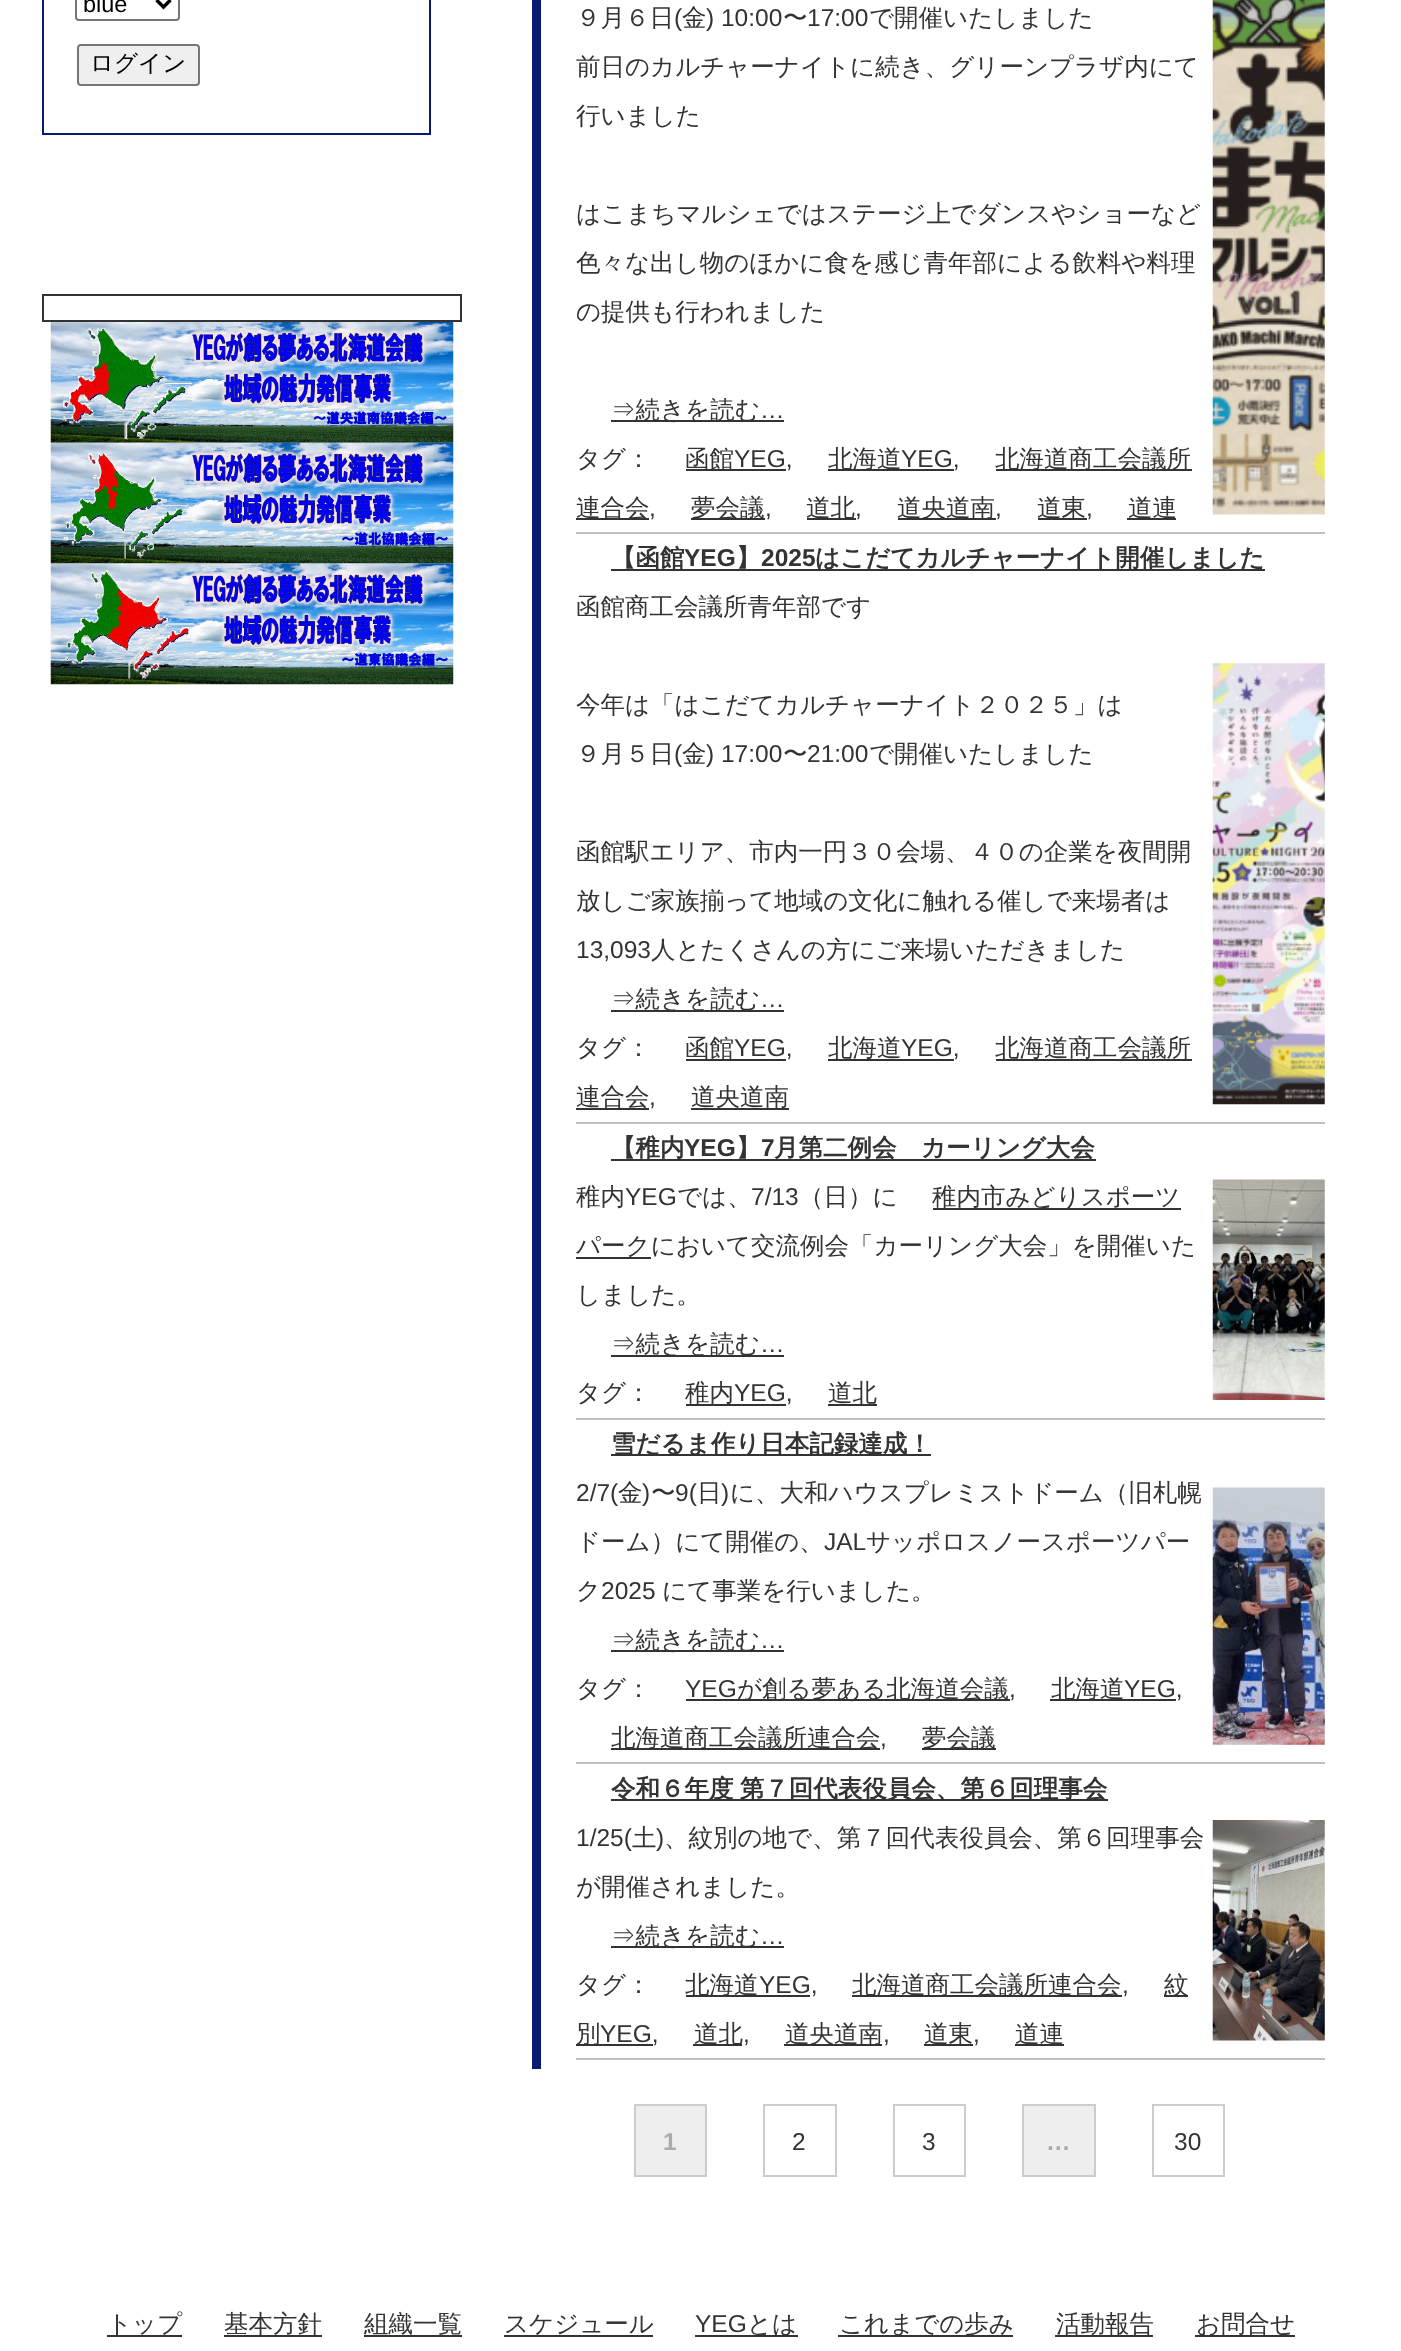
(async () => {
    const canvas = document.querySelector("canvas");
    canvas.width = 1401;
    canvas.height = 2351;
    const context = canvas.getContext("2d");
    context.miterLimit = 4;
    context.fontKerning = "normal";
    function write(s, x, y, font, color) {
        context.font = font;
        context.fillStyle = color;
        context.fillText(s, x, y);
    }
    function block(x, y, w, h, color) {
        context.fillStyle = color;
        context.fillRect(x, y, w, h);
    }
    async function photo(src, x, y, w, h) {
        const img = new Image();
        img.src = src;
        await img.decode();
        context.drawImage(img, x, y, w, h);
    }

    block(0, 0, 1401, 2351, "rgb(255, 255, 255)");
    context.strokeStyle = "rgb(9, 26, 113)";
    context.lineWidth = 2;
    context.strokeRect(43, -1, 387, 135);
    context.beginPath();
    context.roundRect(76, -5, 103, 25, 3);
    context.strokeStyle = "rgb(118, 118, 118)";
    context.stroke();
    context.beginPath();
    context.moveTo(156.5, 0);
    context.lineTo(163.5, 7);
    context.lineTo(170.5, 0);
    context.strokeStyle = "rgb(0, 0, 0)";
    context.lineWidth = 3.5;
    context.stroke();
    write("blue", 83, 12, "23.5px Liberation Sans", "rgb(0, 0, 0)");
    context.fillStyle = "rgb(239, 239, 239)";
    context.beginPath();
    context.roundRect(78, 45, 121, 40, 3);
    context.fill();
    context.strokeStyle = "rgb(118, 118, 118)";
    context.lineWidth = 2;
    context.stroke();
    write("ログイン", 90, 71, "500 23.5px WenQuanYi Zen Hei", "rgb(0, 0, 0)");
    block(42, 294, 420, 2, "rgb(51, 51, 51)");
    block(460, 294, 2, 28, "rgb(51, 51, 51)");
    block(42, 320, 420, 2, "rgb(51, 51, 51)");
    block(42, 294, 2, 28, "rgb(51, 51, 51)");
    await photo("media/1.png", 50, 322, 404, 121);
    await photo("media/2.png", 50, 442, 404, 122);
    await photo("media/3.png", 50, 563, 404, 122);
    block(532, 0, 9, 2069, "rgb(9, 26, 113)");
    block(576, 532, 749, 2, "rgb(192, 192, 192)");
    write("９月６日", 576, 26, "500 24.5px WenQuanYi Zen Hei", "rgb(51, 51, 51)");
    write("(", 674, 26, "24.5px Liberation Sans", "rgb(51, 51, 51)");
    write("金", 682, 26, "500 24.5px WenQuanYi Zen Hei", "rgb(51, 51, 51)");
    write(") 10:00", 706, 26, "24.5px Liberation Sans", "rgb(51, 51, 51)");
    write("〜", 783, 26, "500 24.5px WenQuanYi Zen Hei", "rgb(51, 51, 51)");
    write("17:00", 807, 26, "24.5px Liberation Sans", "rgb(51, 51, 51)");
    write("で開催いたしました", 869, 26, "500 24.5px WenQuanYi Zen Hei", "rgb(51, 51, 51)");
    write("前日のカルチャーナイトに続き、グリーンプラザ内にて", 576, 75, "500 24.5px WenQuanYi Zen Hei", "rgb(51, 51, 51)");
    write("行いました", 576, 124, "500 24.5px WenQuanYi Zen Hei", "rgb(51, 51, 51)");
    write("はこまちマルシェではステージ上でダンスやショーなど", 576, 222, "500 24.5px WenQuanYi Zen Hei", "rgb(51, 51, 51)");
    write("色々な出し物のほかに食を感じ青年部による飲料や料理", 576, 271, "500 24.5px WenQuanYi Zen Hei", "rgb(51, 51, 51)");
    write("の提供も行われました", 576, 320, "500 24.5px WenQuanYi Zen Hei", "rgb(51, 51, 51)");
    await photo("media/4.png", 1212, 0, 113, 515);
    block(611, 420, 173, 2, "rgb(51, 51, 51)");
    write("⇒続きを読む", 611, 418, "500 24.5px WenQuanYi Zen Hei", "rgb(51, 51, 51)");
    write("…", 760, 418, "24.5px Liberation Sans", "rgb(51, 51, 51)");
    write("タグ：", 576, 467, "500 24.5px WenQuanYi Zen Hei", "rgb(51, 51, 51)");
    block(686, 469, 100, 2, "rgb(51, 51, 51)");
    write("函館", 685, 467, "500 24.5px WenQuanYi Zen Hei", "rgb(51, 51, 51)");
    write("YEG,", 734, 467, "24.5px Liberation Sans", "rgb(51, 51, 51)");
    block(828, 469, 126, 2, "rgb(51, 51, 51)");
    write("北海道", 828, 467, "500 24.5px WenQuanYi Zen Hei", "rgb(51, 51, 51)");
    write("YEG,", 901, 467, "24.5px Liberation Sans", "rgb(51, 51, 51)");
    block(996, 469, 196, 2, "rgb(51, 51, 51)");
    write("北海道商工会議所", 995, 467, "500 24.5px WenQuanYi Zen Hei", "rgb(51, 51, 51)");
    block(576, 518, 73, 2, "rgb(51, 51, 51)");
    write("連合会", 576, 516, "500 24.5px WenQuanYi Zen Hei", "rgb(51, 51, 51)");
    write(",", 649, 516, "24.5px Liberation Sans", "rgb(51, 51, 51)");
    block(691, 518, 74, 2, "rgb(51, 51, 51)");
    write("夢会議", 691, 516, "500 24.5px WenQuanYi Zen Hei", "rgb(51, 51, 51)");
    write(",", 765, 516, "24.5px Liberation Sans", "rgb(51, 51, 51)");
    block(807, 518, 49, 2, "rgb(51, 51, 51)");
    write("道北", 806, 516, "500 24.5px WenQuanYi Zen Hei", "rgb(51, 51, 51)");
    write(",", 855, 516, "24.5px Liberation Sans", "rgb(51, 51, 51)");
    block(898, 518, 98, 2, "rgb(51, 51, 51)");
    write("道央道南", 897, 516, "500 24.5px WenQuanYi Zen Hei", "rgb(51, 51, 51)");
    write(",", 995, 516, "24.5px Liberation Sans", "rgb(51, 51, 51)");
    block(1038, 518, 49, 2, "rgb(51, 51, 51)");
    write("道東", 1037, 516, "500 24.5px WenQuanYi Zen Hei", "rgb(51, 51, 51)");
    write(",", 1086, 516, "24.5px Liberation Sans", "rgb(51, 51, 51)");
    block(1127, 518, 49, 2, "rgb(51, 51, 51)");
    write("道連", 1128, 516, "500 24.5px WenQuanYi Zen Hei", "rgb(51, 51, 51)");
    block(576, 1122, 749, 2, "rgb(192, 192, 192)");
    block(611, 569, 654, 2, "rgb(51, 51, 51)");
    write("【函館", 611, 566, "bold 24.5px WenQuanYi Zen Hei", "rgb(51, 51, 51)");
    write("YEG", 684, 566, "bold 24.5px Liberation Sans", "rgb(51, 51, 51)");
    write("】", 736, 566, "bold 24.5px WenQuanYi Zen Hei", "rgb(51, 51, 51)");
    write("2025", 761, 566, "bold 24.5px Liberation Sans", "rgb(51, 51, 51)");
    write("はこだてカルチャーナイト開催しました", 815, 566, "bold 24.5px WenQuanYi Zen Hei", "rgb(51, 51, 51)");
    write("函館商工会議所青年部です", 576, 615, "500 24.5px WenQuanYi Zen Hei", "rgb(51, 51, 51)");
    write("今年は「はこだてカルチャーナイト２０２５」は", 576, 713, "500 24.5px WenQuanYi Zen Hei", "rgb(51, 51, 51)");
    write("９月５日", 576, 762, "500 24.5px WenQuanYi Zen Hei", "rgb(51, 51, 51)");
    write("(", 674, 762, "24.5px Liberation Sans", "rgb(51, 51, 51)");
    write("金", 682, 762, "500 24.5px WenQuanYi Zen Hei", "rgb(51, 51, 51)");
    write(") 17:00", 706, 762, "24.5px Liberation Sans", "rgb(51, 51, 51)");
    write("〜", 783, 762, "500 24.5px WenQuanYi Zen Hei", "rgb(51, 51, 51)");
    write("21:00", 807, 762, "24.5px Liberation Sans", "rgb(51, 51, 51)");
    write("で開催いたしました", 869, 762, "500 24.5px WenQuanYi Zen Hei", "rgb(51, 51, 51)");
    write("函館駅エリア、市内一円３０会場、４０の企業を夜間開", 576, 860, "500 24.5px WenQuanYi Zen Hei", "rgb(51, 51, 51)");
    write("放しご家族揃って地域の文化に触れる催しで来場者は", 576, 909, "500 24.5px WenQuanYi Zen Hei", "rgb(51, 51, 51)");
    write("13,093", 576, 958, "24.5px Liberation Sans", "rgb(51, 51, 51)");
    write("人とたくさんの方にご来場いただきました", 651, 958, "500 24.5px WenQuanYi Zen Hei", "rgb(51, 51, 51)");
    await photo("media/5.png", 1212, 663, 113, 442);
    block(611, 1010, 173, 2, "rgb(51, 51, 51)");
    write("⇒続きを読む", 611, 1007, "500 24.5px WenQuanYi Zen Hei", "rgb(51, 51, 51)");
    write("…", 760, 1007, "24.5px Liberation Sans", "rgb(51, 51, 51)");
    write("タグ：", 576, 1056, "500 24.5px WenQuanYi Zen Hei", "rgb(51, 51, 51)");
    block(686, 1059, 100, 2, "rgb(51, 51, 51)");
    write("函館", 685, 1056, "500 24.5px WenQuanYi Zen Hei", "rgb(51, 51, 51)");
    write("YEG,", 734, 1056, "24.5px Liberation Sans", "rgb(51, 51, 51)");
    block(828, 1059, 126, 2, "rgb(51, 51, 51)");
    write("北海道", 828, 1056, "500 24.5px WenQuanYi Zen Hei", "rgb(51, 51, 51)");
    write("YEG,", 901, 1056, "24.5px Liberation Sans", "rgb(51, 51, 51)");
    block(996, 1059, 196, 2, "rgb(51, 51, 51)");
    write("北海道商工会議所", 995, 1056, "500 24.5px WenQuanYi Zen Hei", "rgb(51, 51, 51)");
    block(576, 1108, 73, 2, "rgb(51, 51, 51)");
    write("連合会", 576, 1105, "500 24.5px WenQuanYi Zen Hei", "rgb(51, 51, 51)");
    write(",", 649, 1105, "24.5px Liberation Sans", "rgb(51, 51, 51)");
    block(691, 1108, 98, 2, "rgb(51, 51, 51)");
    write("道央道南", 691, 1105, "500 24.5px WenQuanYi Zen Hei", "rgb(51, 51, 51)");
    block(576, 1418, 749, 2, "rgb(192, 192, 192)");
    block(611, 1159, 485, 2, "rgb(51, 51, 51)");
    write("【稚内", 611, 1156, "bold 24.5px WenQuanYi Zen Hei", "rgb(51, 51, 51)");
    write("YEG", 684, 1156, "bold 24.5px Liberation Sans", "rgb(51, 51, 51)");
    write("】", 736, 1156, "bold 24.5px WenQuanYi Zen Hei", "rgb(51, 51, 51)");
    write("7", 761, 1156, "bold 24.5px Liberation Sans", "rgb(51, 51, 51)");
    write("月第二例会　カーリング大会", 774, 1156, "bold 24.5px WenQuanYi Zen Hei", "rgb(51, 51, 51)");
    write("稚内", 576, 1205, "500 24.5px WenQuanYi Zen Hei", "rgb(51, 51, 51)");
    write("YEG", 625, 1205, "24.5px Liberation Sans", "rgb(51, 51, 51)");
    write("では、", 677, 1205, "500 24.5px WenQuanYi Zen Hei", "rgb(51, 51, 51)");
    write("7/13", 751, 1205, "24.5px Liberation Sans", "rgb(51, 51, 51)");
    write("（日）に", 799, 1205, "500 24.5px WenQuanYi Zen Hei", "rgb(51, 51, 51)");
    block(933, 1208, 248, 2, "rgb(51, 51, 51)");
    write("稚内市みどりスポーツ", 932, 1205, "500 24.5px WenQuanYi Zen Hei", "rgb(51, 51, 51)");
    block(576, 1257, 75, 2, "rgb(51, 51, 51)");
    write("パークにおいて交流例会「カーリング大会」を開催いた", 576, 1254, "500 24.5px WenQuanYi Zen Hei", "rgb(51, 51, 51)");
    write("しました。", 576, 1303, "500 24.5px WenQuanYi Zen Hei", "rgb(51, 51, 51)");
    await photo("media/6.png", 1212, 1179, 113, 221);
    block(611, 1355, 173, 2, "rgb(51, 51, 51)");
    write("⇒続きを読む", 611, 1352, "500 24.5px WenQuanYi Zen Hei", "rgb(51, 51, 51)");
    write("…", 760, 1352, "24.5px Liberation Sans", "rgb(51, 51, 51)");
    write("タグ：", 576, 1401, "500 24.5px WenQuanYi Zen Hei", "rgb(51, 51, 51)");
    block(686, 1404, 100, 2, "rgb(51, 51, 51)");
    write("稚内", 685, 1401, "500 24.5px WenQuanYi Zen Hei", "rgb(51, 51, 51)");
    write("YEG,", 734, 1401, "24.5px Liberation Sans", "rgb(51, 51, 51)");
    write("道北", 828, 1401, "500 24.5px WenQuanYi Zen Hei", "rgb(51, 51, 51)");
    block(828, 1404, 49, 2, "rgb(51, 51, 51)");
    block(576, 1762, 749, 2, "rgb(192, 192, 192)");
    block(611, 1454, 320, 2, "rgb(51, 51, 51)");
    write("雪だるま作り日本記録達成！", 611, 1452, "bold 24.5px WenQuanYi Zen Hei", "rgb(51, 51, 51)");
    write("2/7(", 576, 1501, "24.5px Liberation Sans", "rgb(51, 51, 51)");
    write("金", 618, 1501, "500 24.5px WenQuanYi Zen Hei", "rgb(51, 51, 51)");
    write(")", 642, 1501, "24.5px Liberation Sans", "rgb(51, 51, 51)");
    write("〜", 651, 1501, "500 24.5px WenQuanYi Zen Hei", "rgb(51, 51, 51)");
    write("9(", 675, 1501, "24.5px Liberation Sans", "rgb(51, 51, 51)");
    write("日", 697, 1501, "500 24.5px WenQuanYi Zen Hei", "rgb(51, 51, 51)");
    write(")", 721, 1501, "24.5px Liberation Sans", "rgb(51, 51, 51)");
    write("に、大和ハウスプレミストドーム（旧札幌", 730, 1501, "500 24.5px WenQuanYi Zen Hei", "rgb(51, 51, 51)");
    write("ドーム）にて開催の、", 576, 1550, "500 24.5px WenQuanYi Zen Hei", "rgb(51, 51, 51)");
    write("JAL", 824, 1550, "24.5px Liberation Sans", "rgb(51, 51, 51)");
    write("サッポロスノースポーツパー", 866, 1550, "500 24.5px WenQuanYi Zen Hei", "rgb(51, 51, 51)");
    write("ク", 576, 1599, "500 24.5px WenQuanYi Zen Hei", "rgb(51, 51, 51)");
    write("2025", 601, 1599, "24.5px Liberation Sans", "rgb(51, 51, 51)");
    write("にて事業を行いました。", 662, 1599, "500 24.5px WenQuanYi Zen Hei", "rgb(51, 51, 51)");
    await photo("media/7.png", 1212, 1487, 113, 258);
    block(611, 1650, 173, 2, "rgb(51, 51, 51)");
    write("⇒続きを読む", 611, 1648, "500 24.5px WenQuanYi Zen Hei", "rgb(51, 51, 51)");
    write("…", 760, 1648, "24.5px Liberation Sans", "rgb(51, 51, 51)");
    write("タグ：", 576, 1697, "500 24.5px WenQuanYi Zen Hei", "rgb(51, 51, 51)");
    write("YEG", 685, 1697, "24.5px Liberation Sans", "rgb(51, 51, 51)");
    block(686, 1699, 324, 2, "rgb(51, 51, 51)");
    write("が創る夢ある北海道会議", 737, 1697, "500 24.5px WenQuanYi Zen Hei", "rgb(51, 51, 51)");
    write(",", 1009, 1697, "24.5px Liberation Sans", "rgb(51, 51, 51)");
    block(1050, 1699, 126, 2, "rgb(51, 51, 51)");
    write("北海道", 1051, 1697, "500 24.5px WenQuanYi Zen Hei", "rgb(51, 51, 51)");
    write("YEG,", 1124, 1697, "24.5px Liberation Sans", "rgb(51, 51, 51)");
    block(611, 1748, 269, 2, "rgb(51, 51, 51)");
    write("北海道商工会議所連合会", 611, 1746, "500 24.5px WenQuanYi Zen Hei", "rgb(51, 51, 51)");
    write(",", 880, 1746, "24.5px Liberation Sans", "rgb(51, 51, 51)");
    block(922, 1748, 74, 2, "rgb(51, 51, 51)");
    write("夢会議", 922, 1746, "500 24.5px WenQuanYi Zen Hei", "rgb(51, 51, 51)");
    block(576, 2058, 749, 2, "rgb(192, 192, 192)");
    block(611, 1799, 497, 2, "rgb(51, 51, 51)");
    context.wordSpacing = "-1px";
    write("令和６年度 第７回代表役員会、第６回理事会", 611, 1797, "bold 24.5px WenQuanYi Zen Hei", "rgb(51, 51, 51)");
    context.wordSpacing = "0px";
    write("1/25(", 576, 1846, "24.5px Liberation Sans", "rgb(51, 51, 51)");
    write("土", 632, 1846, "500 24.5px WenQuanYi Zen Hei", "rgb(51, 51, 51)");
    write(")", 656, 1846, "24.5px Liberation Sans", "rgb(51, 51, 51)");
    write("、紋別の地で、第７回代表役員会、第６回理事会", 664, 1846, "500 24.5px WenQuanYi Zen Hei", "rgb(51, 51, 51)");
    write("が開催されました。", 576, 1895, "500 24.5px WenQuanYi Zen Hei", "rgb(51, 51, 51)");
    await photo("media/8.png", 1212, 1820, 113, 221);
    block(611, 1946, 173, 2, "rgb(51, 51, 51)");
    write("⇒続きを読む", 611, 1944, "500 24.5px WenQuanYi Zen Hei", "rgb(51, 51, 51)");
    write("…", 760, 1944, "24.5px Liberation Sans", "rgb(51, 51, 51)");
    write("タグ：", 576, 1993, "500 24.5px WenQuanYi Zen Hei", "rgb(51, 51, 51)");
    block(686, 1995, 124, 2, "rgb(51, 51, 51)");
    write("北海道", 685, 1993, "500 24.5px WenQuanYi Zen Hei", "rgb(51, 51, 51)");
    write("YEG,", 759, 1993, "24.5px Liberation Sans", "rgb(51, 51, 51)");
    block(852, 1995, 270, 2, "rgb(51, 51, 51)");
    write("北海道商工会議所連合会", 852, 1993, "500 24.5px WenQuanYi Zen Hei", "rgb(51, 51, 51)");
    write(",", 1122, 1993, "24.5px Liberation Sans", "rgb(51, 51, 51)");
    block(1164, 1995, 24, 2, "rgb(51, 51, 51)");
    write("紋", 1164, 1993, "500 24.5px WenQuanYi Zen Hei", "rgb(51, 51, 51)");
    block(576, 2044, 77, 2, "rgb(51, 51, 51)");
    write("別", 576, 2042, "500 24.5px WenQuanYi Zen Hei", "rgb(51, 51, 51)");
    write("YEG,", 600, 2042, "24.5px Liberation Sans", "rgb(51, 51, 51)");
    block(693, 2044, 49, 2, "rgb(51, 51, 51)");
    write("道北", 694, 2042, "500 24.5px WenQuanYi Zen Hei", "rgb(51, 51, 51)");
    write(",", 743, 2042, "24.5px Liberation Sans", "rgb(51, 51, 51)");
    block(784, 2044, 98, 2, "rgb(51, 51, 51)");
    write("道央道南", 785, 2042, "500 24.5px WenQuanYi Zen Hei", "rgb(51, 51, 51)");
    write(",", 883, 2042, "24.5px Liberation Sans", "rgb(51, 51, 51)");
    block(924, 2044, 49, 2, "rgb(51, 51, 51)");
    write("道東", 924, 2042, "500 24.5px WenQuanYi Zen Hei", "rgb(51, 51, 51)");
    write(",", 973, 2042, "24.5px Liberation Sans", "rgb(51, 51, 51)");
    block(1015, 2044, 49, 2, "rgb(51, 51, 51)");
    write("道連", 1015, 2042, "500 24.5px WenQuanYi Zen Hei", "rgb(51, 51, 51)");
    context.fillStyle = "rgb(238, 238, 238)";
    context.beginPath();
    context.rect(635, 2105, 71, 71);
    context.fill();
    context.strokeStyle = "rgb(204, 204, 204)";
    context.stroke();
    write("1", 663, 2150, "bold 24.5px Liberation Sans", "rgb(171, 171, 171)");
    context.strokeRect(764, 2105, 72, 71);
    write("2", 792, 2150, "24.5px Liberation Sans", "rgb(51, 51, 51)");
    context.strokeRect(894, 2105, 71, 71);
    write("3", 922, 2150, "24.5px Liberation Sans", "rgb(51, 51, 51)");
    context.fillStyle = "rgb(238, 238, 238)";
    context.beginPath();
    context.rect(1023, 2105, 72, 71);
    context.fill();
    context.stroke();
    write("…", 1046, 2150, "bold 24.5px Liberation Sans", "rgb(171, 171, 171)");
    context.strokeRect(1153, 2105, 71, 71);
    write("30", 1174, 2150, "24.5px Liberation Sans", "rgb(51, 51, 51)");
    block(107, 2335, 75, 2, "rgb(51, 51, 51)");
    write("トップ", 107, 2332, "500 24.5px WenQuanYi Zen Hei", "rgb(51, 51, 51)");
    write("基本方針", 224, 2332, "500 24.5px WenQuanYi Zen Hei", "rgb(51, 51, 51)");
    block(224, 2335, 98, 2, "rgb(51, 51, 51)");
    write("組織一覧", 364, 2332, "500 24.5px WenQuanYi Zen Hei", "rgb(51, 51, 51)");
    block(364, 2335, 98, 2, "rgb(51, 51, 51)");
    write("スケジュール", 504, 2332, "500 24.5px WenQuanYi Zen Hei", "rgb(51, 51, 51)");
    block(504, 2335, 149, 2, "rgb(51, 51, 51)");
    write("YEG", 695, 2332, "24.5px Liberation Sans", "rgb(51, 51, 51)");
    block(695, 2335, 103, 2, "rgb(51, 51, 51)");
    write("とは", 747, 2332, "500 24.5px WenQuanYi Zen Hei", "rgb(51, 51, 51)");
    block(838, 2335, 175, 2, "rgb(51, 51, 51)");
    write("これまでの歩み", 839, 2332, "500 24.5px WenQuanYi Zen Hei", "rgb(51, 51, 51)");
    block(1055, 2335, 98, 2, "rgb(51, 51, 51)");
    write("活動報告", 1056, 2332, "500 24.5px WenQuanYi Zen Hei", "rgb(51, 51, 51)");
    block(1195, 2335, 100, 2, "rgb(51, 51, 51)");
    write("お問合せ", 1196, 2332, "500 24.5px WenQuanYi Zen Hei", "rgb(51, 51, 51)");
})();
